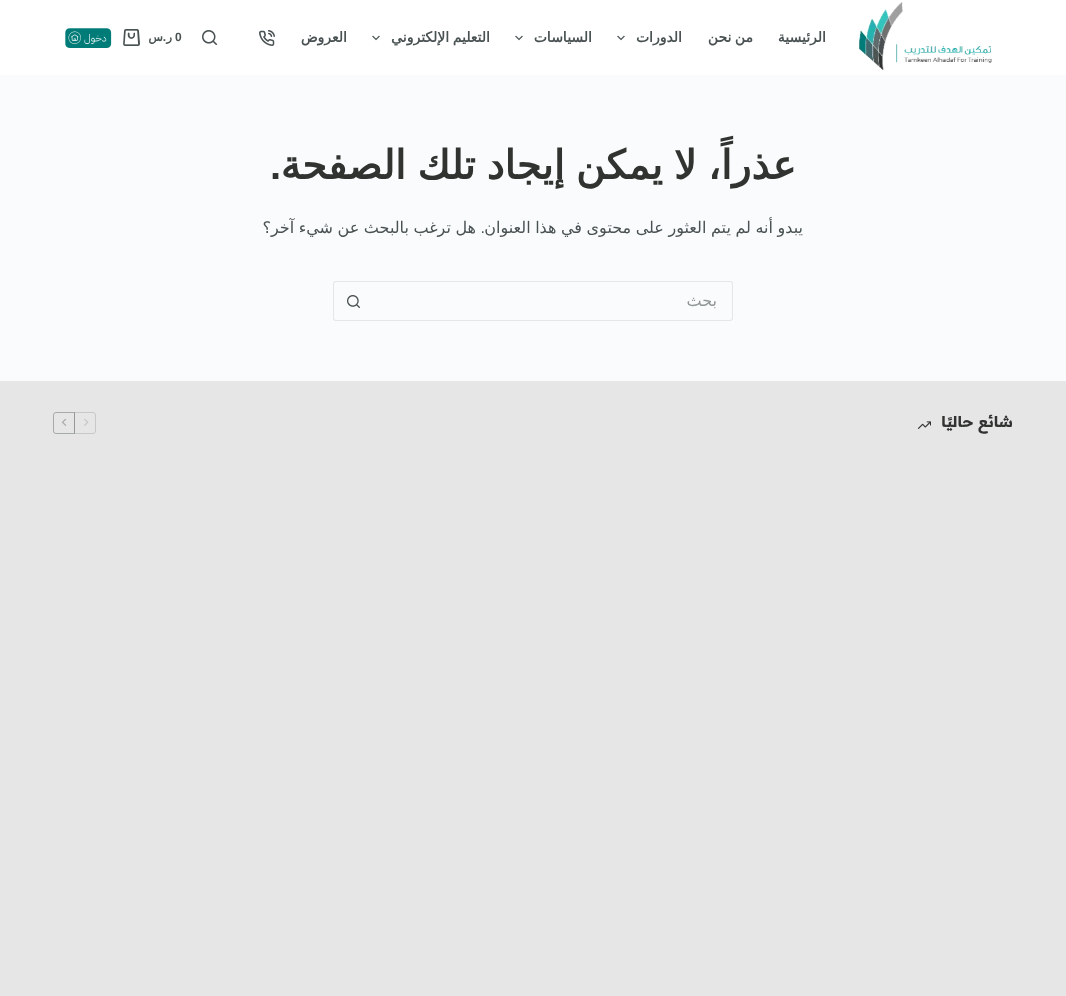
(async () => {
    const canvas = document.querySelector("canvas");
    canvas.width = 1066;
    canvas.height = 996;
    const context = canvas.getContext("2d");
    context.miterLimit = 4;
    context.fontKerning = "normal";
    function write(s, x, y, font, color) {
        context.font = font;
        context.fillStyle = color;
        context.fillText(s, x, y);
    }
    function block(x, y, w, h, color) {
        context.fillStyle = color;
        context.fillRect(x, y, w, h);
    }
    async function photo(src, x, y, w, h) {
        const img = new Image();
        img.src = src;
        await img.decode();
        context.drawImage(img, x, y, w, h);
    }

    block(0, 0, 1066, 996, "rgb(250, 251, 252)");
    block(0, 0, 1066, 75, "rgb(255, 255, 255)");
    await photo("media/1.png", 858, 2, 134, 68);
    context.direction = "rtl";
    write("الرئيسية", 826, 42, "bold 14px DejaVu Sans", "rgb(73, 81, 82)");
    context.wordSpacing = "-1px";
    write("من نحن", 753, 42, "bold 14px DejaVu Sans", "rgb(73, 81, 82)");
    context.wordSpacing = "0px";
    write("الدورات", 682, 42, "bold 14px DejaVu Sans", "rgb(73, 81, 82)");
    await photo("media/2.png", 617, 35, 8, 6);
    write("السياسات", 592, 42, "bold 14px DejaVu Sans", "rgb(73, 81, 82)");
    await photo("media/2.png", 515, 35, 8, 6);
    context.wordSpacing = "-1px";
    write("التعليم الإلكتروني", 490, 42, "bold 14px DejaVu Sans", "rgb(73, 81, 82)");
    await photo("media/2.png", 372, 35, 8, 6);
    context.wordSpacing = "0px";
    write("العروض", 347, 42, "bold 14px DejaVu Sans", "rgb(73, 81, 82)");
    await photo("media/3.png", 259, 30, 16, 16);
    await photo("media/4.png", 202, 30, 15, 15);
    context.direction = "ltr";
    write("0", 175, 41, "bold 12px Liberation Sans", "rgb(73, 81, 82)");
    context.direction = "rtl";
    write(".", 166, 41, "bold 12px Liberation Sans", "rgb(73, 81, 82)");
    write("ر", 172, 41, "bold 12px DejaVu Sans", "rgb(73, 81, 82)");
    write("س", 163, 41, "bold 12px DejaVu Sans", "rgb(73, 81, 82)");
    await photo("media/5.png", 123, 29, 17, 17);
    await photo("media/6.png", 65, 28, 47, 20);
    context.wordSpacing = "-1.5px";
    write("عذراً، لا يمكن إيجاد تلك الصفحة", 796, 179, "bold 40px DejaVu Sans", "rgb(49, 51, 48)");
    context.wordSpacing = "0px";
    write(".", 281, 179, "bold 40px Liberation Sans", "rgb(49, 51, 48)");
    context.wordSpacing = "-0.5px";
    write("يبدو أنه لم يتم العثور على محتوى في هذا العنوان", 803, 233, "16px DejaVu Sans", "rgb(73, 81, 82)");
    context.wordSpacing = "0px";
    write(".", 485, 233, "16px Liberation Sans", "rgb(73, 81, 82)");
    context.wordSpacing = "-0.5px";
    write("هل ترغب بالبحث عن شيء آخر؟", 476, 233, "16px DejaVu Sans", "rgb(73, 81, 82)");
    context.fillStyle = "rgb(230, 230, 230)";
    context.beginPath();
    context.moveTo(373, 281);
    context.lineTo(730, 281);
    context.bezierCurveTo(732, 281, 733, 282, 733, 284);
    context.lineTo(733, 318);
    context.bezierCurveTo(733, 320, 732, 321, 730, 321);
    context.lineTo(373, 321);
    context.closePath();
    context.moveTo(373, 282);
    context.lineTo(730, 282);
    context.bezierCurveTo(731, 282, 732, 283, 732, 284);
    context.lineTo(732, 318);
    context.bezierCurveTo(732, 319, 731, 320, 730, 320);
    context.lineTo(373, 320);
    context.closePath();
    context.fill("evenodd");
    context.wordSpacing = "0px";
    write("بحث", 717, 306, "16px DejaVu Sans", "rgb(144, 149, 150)");
    context.fillStyle = "rgb(230, 230, 230)";
    context.beginPath();
    context.moveTo(336, 281);
    context.lineTo(373, 281);
    context.lineTo(373, 321);
    context.lineTo(336, 321);
    context.bezierCurveTo(334, 321, 333, 320, 333, 318);
    context.lineTo(333, 284);
    context.bezierCurveTo(333, 282, 334, 281, 336, 281);
    context.closePath();
    context.moveTo(336, 282);
    context.lineTo(373, 282);
    context.lineTo(373, 320);
    context.lineTo(336, 320);
    context.bezierCurveTo(335, 320, 334, 319, 334, 318);
    context.lineTo(334, 284);
    context.bezierCurveTo(334, 283, 335, 282, 336, 282);
    context.closePath();
    context.fill("evenodd");
    await photo("media/7.png", 347, 295, 13, 13);
    block(0, 381, 1066, 615, "rgb(230, 230, 230)");
    write("شائع حاليًا", 1013, 427, "bold 15px Readex Pro", "rgb(49, 51, 48)");
    await photo("media/8.png", 918, 421, 13, 8);
    context.beginPath();
    context.roundRect(74.5, 412.5, 21, 21, [0, 2.5, 2.5, 0]);
    context.strokeStyle = "rgb(199, 200, 200)";
    context.stroke();
    await photo("media/9.png", 84, 419, 5, 7);
    context.beginPath();
    context.roundRect(53.5, 412.5, 21, 21, [2.5, 0, 0, 2.5]);
    context.strokeStyle = "rgba(73, 81, 82, 0.4)";
    context.stroke();
    await photo("media/10.png", 61, 419, 6, 7);
})();
